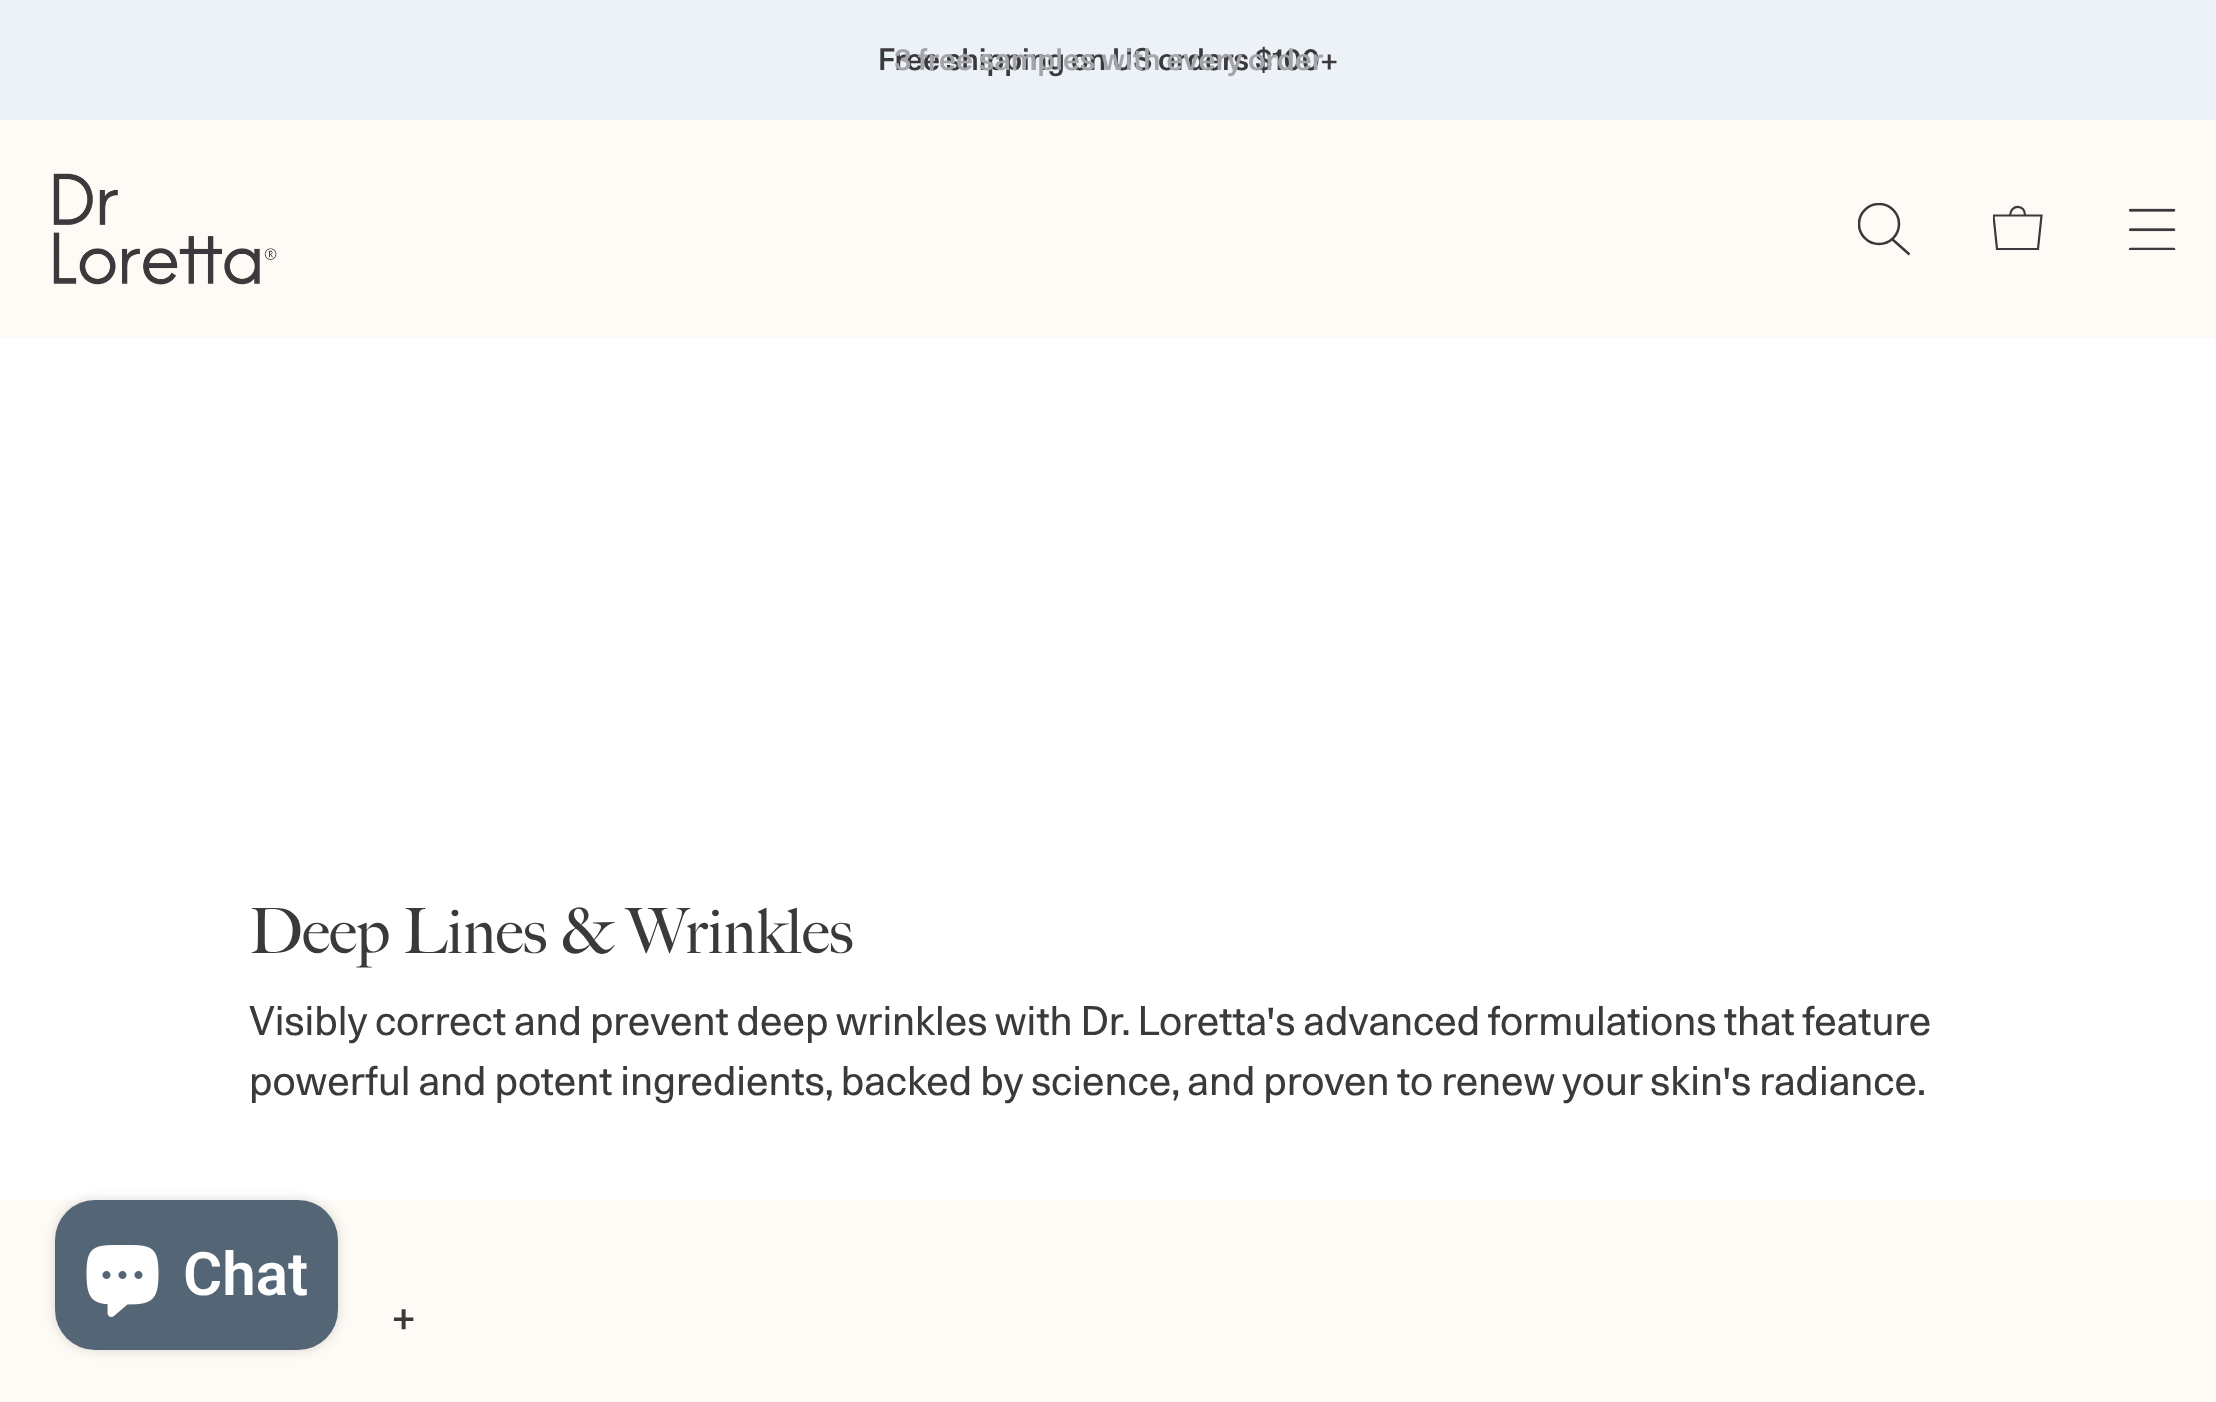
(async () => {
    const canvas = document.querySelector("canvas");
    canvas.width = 2216;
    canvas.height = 1402;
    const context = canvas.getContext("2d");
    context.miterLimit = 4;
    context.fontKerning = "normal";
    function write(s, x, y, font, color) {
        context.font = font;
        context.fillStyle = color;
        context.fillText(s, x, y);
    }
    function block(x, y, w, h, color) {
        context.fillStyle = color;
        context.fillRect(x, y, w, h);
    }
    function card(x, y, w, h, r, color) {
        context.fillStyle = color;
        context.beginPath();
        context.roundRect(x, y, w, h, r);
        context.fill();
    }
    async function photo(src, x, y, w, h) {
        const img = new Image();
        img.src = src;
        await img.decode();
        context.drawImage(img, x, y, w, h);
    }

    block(0, 0, 2216, 1402, "rgb(255, 255, 255)");
    block(0, 0, 2216, 120, "rgb(236, 242, 247)");
    write("Free shipping on US orders $100+", 878, 70, "500 30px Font", "rgb(60, 57, 60)");
    write("3 free samples with every order", 894, 70, "500 30px Font", "rgb(163, 165, 170)");
    block(0, 120, 2216, 218, "rgb(254, 250, 245)");
    await photo("media/1.png", 53, 173, 224, 112);
    context.save();
    context.beginPath();
    context.rect(1858, 203, 52, 52);
    context.clip();
    context.beginPath();
    context.arc(1879, 224, 20, 0, Math.PI * 2);
    context.strokeStyle = "rgb(60, 57, 60)";
    context.lineWidth = 2.5;
    context.stroke();
    context.restore();
    context.beginPath();
    context.moveTo(1909.5, 254.5);
    context.lineTo(1892, 239);
    context.strokeStyle = "rgb(60, 57, 60)";
    context.lineWidth = 2.5;
    context.stroke();
    context.save();
    context.beginPath();
    context.rect(1993, 203, 50, 52);
    context.clip();
    context.beginPath();
    context.moveTo(1993.5, 215.5);
    context.lineTo(1997, 249);
    context.lineTo(2038, 249);
    context.lineTo(2041.5, 215.5);
    context.closePath();
    context.lineWidth = 2.2;
    context.stroke();
    context.restore();
    context.beginPath();
    context.moveTo(2010, 215.5);
    context.bezierCurveTo(2010.5, 204, 2025.5, 204, 2025, 215.5);
    context.lineWidth = 2.2;
    context.stroke();
    await photo("media/2.png", 2128, 208, 48, 42);
    block(0, 1200, 2216, 202, "rgb(254, 250, 245)");
    context.fillStyle = "rgba(0, 0, 0, 0.15)";
    context.filter = "blur(6px)";
    context.beginPath();
    context.roundRect(55, 1200, 283, 150, 40);
    context.fill();
    context.filter = "none";
    card(55, 1200, 283, 150, 40, "rgb(84, 102, 117)");
    await photo("media/3.png", 86, 1245, 73, 72);
    write("Chat", 183, 1295, "600 60px Roboto", "rgb(255, 255, 255)");
    write("Deep Lines & Wrinkles", 249, 953, "62.5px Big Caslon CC", "rgb(60, 57, 60)");
    write("Visibly correct and prevent deep wrinkles with Dr. Loretta's advanced formulations that feature", 249, 1035, "40px Font", "rgb(60, 57, 60)");
    write("powerful and potent ingredients, backed by science, and proven to renew your skin's radiance.", 249, 1095, "40px Font", "rgb(60, 57, 60)");
    write("+", 391, 1330, "500 40px Font", "rgb(60, 57, 60)");
})();
